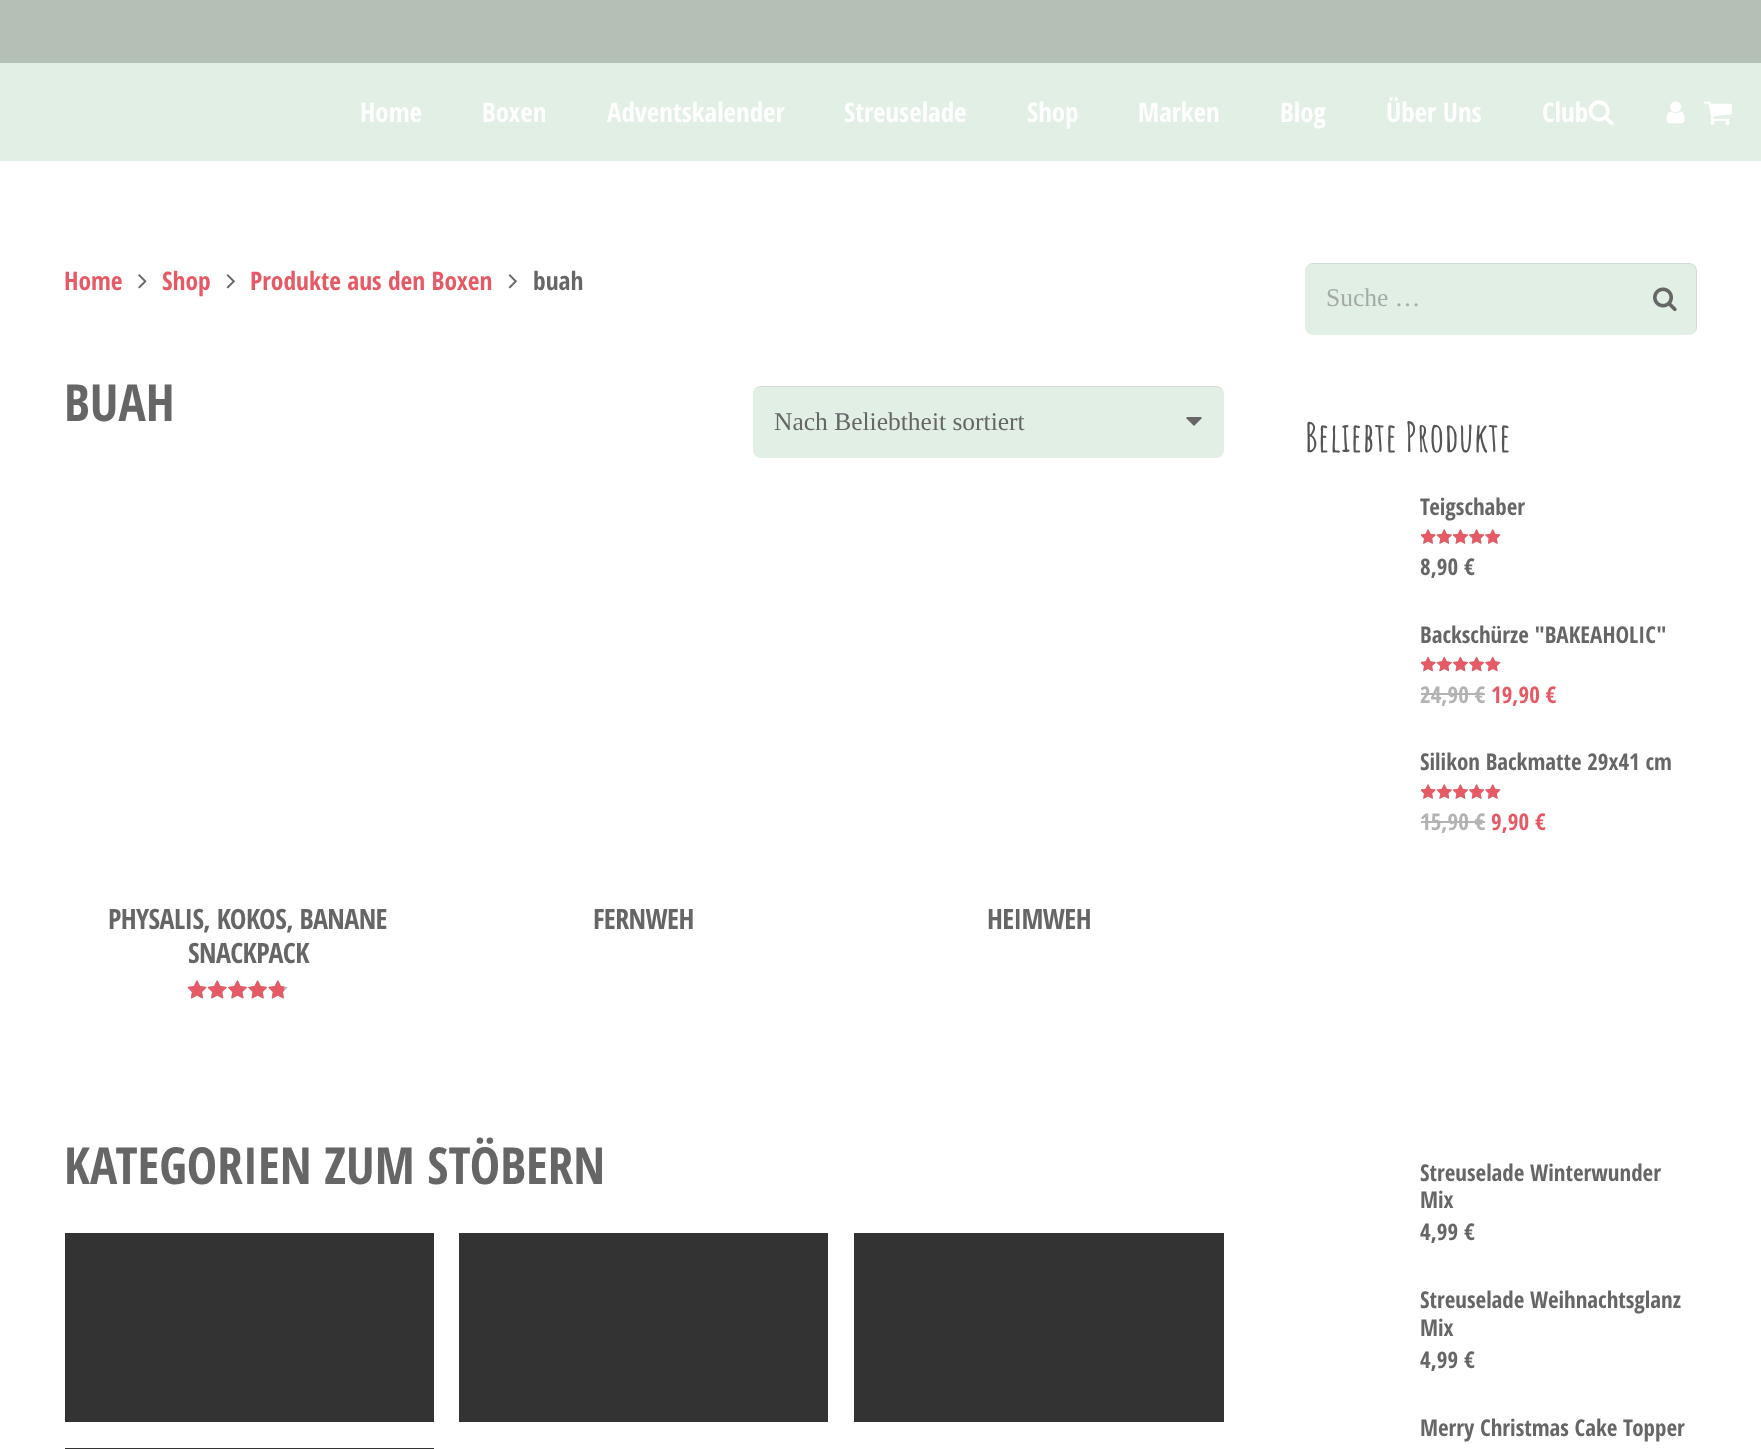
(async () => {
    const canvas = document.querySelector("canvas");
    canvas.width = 1761;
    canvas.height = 1449;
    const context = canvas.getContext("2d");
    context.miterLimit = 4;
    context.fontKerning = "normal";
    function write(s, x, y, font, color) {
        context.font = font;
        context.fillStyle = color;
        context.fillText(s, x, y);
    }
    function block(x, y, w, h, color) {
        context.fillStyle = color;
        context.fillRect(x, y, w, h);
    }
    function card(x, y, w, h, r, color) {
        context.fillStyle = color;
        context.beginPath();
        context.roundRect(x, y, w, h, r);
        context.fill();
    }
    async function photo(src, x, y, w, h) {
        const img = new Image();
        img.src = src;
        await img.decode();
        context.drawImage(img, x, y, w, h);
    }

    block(0, 0, 1761, 1449, "rgb(255, 255, 255)");
    block(0, 0, 1761, 63, "rgb(180, 191, 182)");
    block(0, 63, 1761, 98, "rgb(225, 239, 228)");
    write("Home", 360, 122, "bold 27px Open Sans Condensed", "rgb(255, 255, 255)");
    write("Boxen", 482, 122, "bold 27px Open Sans Condensed", "rgb(255, 255, 255)");
    write("Adventskalender", 607, 122, "bold 27px Open Sans Condensed", "rgb(255, 255, 255)");
    write("Streuselade", 844, 122, "bold 27px Open Sans Condensed", "rgb(255, 255, 255)");
    write("Shop", 1027, 122, "bold 27px Open Sans Condensed", "rgb(255, 255, 255)");
    write("Marken", 1138, 122, "bold 27px Open Sans Condensed", "rgb(255, 255, 255)");
    write("Blog", 1280, 122, "bold 27px Open Sans Condensed", "rgb(255, 255, 255)");
    write("Über Uns", 1386, 122, "bold 27px Open Sans Condensed", "rgb(255, 255, 255)");
    write("Club", 1542, 122, "bold 27px Open Sans Condensed", "rgb(255, 255, 255)");
    await photo("media/1.png", 1588, 100, 26, 26);
    await photo("media/2.png", 1666, 101, 19, 23);
    await photo("media/3.png", 1704, 101, 28, 24);
    write("Home", 64, 290, "bold 25.5px Open Sans Condensed", "rgb(230, 90, 102)");
    await photo("media/4.png", 138, 274, 9, 15);
    write("Shop", 162, 290, "bold 25.5px Open Sans Condensed", "rgb(230, 90, 102)");
    await photo("media/5.png", 226, 274, 9, 15);
    write("Produkte aus den Boxen", 250, 290, "bold 25.5px Open Sans Condensed", "rgb(230, 90, 102)");
    await photo("media/5.png", 508, 274, 9, 15);
    write("buah", 533, 290, "bold 25.5px Open Sans Condensed", "rgb(102, 102, 102)");
    write("BUAH", 64, 421, "bold 51px Open Sans Condensed", "rgb(102, 102, 102)");
    card(753, 386, 471, 72, 8, "rgb(225, 239, 228)");
    context.fillStyle = "rgba(0, 0, 0, 0.08)";
    context.beginPath();
    context.moveTo(761, 387);
    context.lineTo(1216, 387);
    context.bezierCurveTo(1221, 387, 1224, 390, 1224, 395);
    context.bezierCurveTo(1224, 390, 1221, 386, 1216, 386);
    context.lineTo(761, 386);
    context.bezierCurveTo(756, 386, 753, 390, 753, 395);
    context.bezierCurveTo(753, 390, 756, 387, 761, 387);
    context.closePath();
    context.fill();
    write("Nach Beliebtheit sortiert", 774, 430, "25.5px Liberation Serif", "rgb(102, 102, 102)");
    context.beginPath();
    context.moveTo(1188, 417);
    context.bezierCurveTo(1187, 417, 1186.5, 417.5, 1186, 418);
    context.lineTo(1194, 426);
    context.lineTo(1202, 418);
    context.bezierCurveTo(1201.5, 417.5, 1201, 417, 1200, 417);
    context.closePath();
    context.fill();
    context.letterSpacing = "-0.6px";
    write("PHYSALIS, KOKOS, BANANE", 108, 929, "bold 28px Open Sans Condensed", "rgb(102, 102, 102)");
    write("SNACKPACK", 188, 963, "bold 28px Open Sans Condensed", "rgb(102, 102, 102)");
    await photo("media/6.png", 187, 980, 101, 19);
    await photo("media/7.png", 188, 980, 96, 19);
    write("FERNWEH", 593, 929, "bold 28px Open Sans Condensed", "rgb(102, 102, 102)");
    write("HEIMWEH", 987, 929, "bold 28px Open Sans Condensed", "rgb(102, 102, 102)");
    context.letterSpacing = "0px";
    write("KATEGORIEN ZUM STÖBERN", 64, 1184, "bold 51px Open Sans Condensed", "rgb(102, 102, 102)");
    block(65, 1233, 369, 189, "rgb(51, 51, 51)");
    block(459, 1233, 369, 189, "rgb(51, 51, 51)");
    block(854, 1233, 370, 189, "rgb(51, 51, 51)");
    block(65, 1448, 369, 1, "rgb(51, 51, 51)");
    card(1305, 263, 392, 72, 8, "rgb(225, 239, 228)");
    context.fillStyle = "rgba(0, 0, 0, 0.08)";
    context.beginPath();
    context.moveTo(1313, 264);
    context.lineTo(1689, 264);
    context.bezierCurveTo(1693, 264, 1696, 267, 1696, 272);
    context.lineTo(1696, 328);
    context.lineTo(1695, 332);
    context.bezierCurveTo(1696, 331, 1697, 329, 1697, 327);
    context.lineTo(1697, 271);
    context.bezierCurveTo(1697, 267, 1693, 263, 1689, 263);
    context.lineTo(1313, 263);
    context.bezierCurveTo(1309, 263, 1305, 267, 1305, 271);
    context.lineTo(1305, 272);
    context.bezierCurveTo(1305, 267, 1308, 264, 1313, 264);
    context.closePath();
    context.fill();
    write("Suche …", 1326, 306, "25.5px Liberation Serif", "rgb(164, 171, 165)");
    await photo("media/8.png", 1653, 287, 24, 25);
    context.letterSpacing = "0.4px";
    write("Beliebte Produkte", 1305, 452, "bold 40.5px Amatic SC", "rgb(85, 85, 85)");
    context.letterSpacing = "0px";
    write("Teigschaber", 1420, 515, "bold 23px Open Sans Condensed", "rgb(102, 102, 102)");
    await photo("media/9.png", 1421, 529, 80, 15);
    await photo("media/10.png", 1421, 529, 80, 15);
    write("8,90", 1420, 575, "bold 23px Open Sans Condensed", "rgb(102, 102, 102)");
    write("€", 1464, 575, "bold 23px Open Sans Condensed", "rgb(102, 102, 102)");
    write("Backschürze \"BAKEAHOLIC\"", 1420, 643, "bold 23px Open Sans Condensed", "rgb(102, 102, 102)");
    await photo("media/11.png", 1421, 656, 80, 16);
    await photo("media/12.png", 1421, 656, 80, 16);
    write("24,90 €", 1420, 703, "bold 23px Open Sans Condensed", "rgb(179, 179, 179)");
    block(1421, 693, 64, 2, "rgb(179, 179, 179)");
    write("19,90 €", 1491, 703, "bold 23px Open Sans Condensed", "rgb(230, 90, 102)");
    write("Silikon Backmatte 29x41 cm", 1420, 770, "bold 23px Open Sans Condensed", "rgb(102, 102, 102)");
    await photo("media/9.png", 1421, 784, 80, 15);
    await photo("media/10.png", 1421, 784, 80, 15);
    write("15,90 €", 1420, 830, "bold 23px Open Sans Condensed", "rgb(179, 179, 179)");
    block(1421, 821, 64, 2, "rgb(179, 179, 179)");
    write("9,90", 1491, 830, "bold 23px Open Sans Condensed", "rgb(230, 90, 102)");
    write("€", 1535, 830, "bold 23px Open Sans Condensed", "rgb(230, 90, 102)");
    write("Streuselade Winterwunder", 1420, 1181, "bold 23px Open Sans Condensed", "rgb(102, 102, 102)");
    write("Mix", 1420, 1208, "bold 23px Open Sans Condensed", "rgb(102, 102, 102)");
    write("4,99", 1420, 1240, "bold 23px Open Sans Condensed", "rgb(102, 102, 102)");
    write("€", 1464, 1240, "bold 23px Open Sans Condensed", "rgb(102, 102, 102)");
    write("Streuselade Weihnachtsglanz", 1420, 1308, "bold 23px Open Sans Condensed", "rgb(102, 102, 102)");
    write("Mix", 1420, 1336, "bold 23px Open Sans Condensed", "rgb(102, 102, 102)");
    write("4,99", 1420, 1368, "bold 23px Open Sans Condensed", "rgb(102, 102, 102)");
    write("€", 1464, 1368, "bold 23px Open Sans Condensed", "rgb(102, 102, 102)");
    write("Merry Christmas Cake Topper", 1420, 1436, "bold 23px Open Sans Condensed", "rgb(102, 102, 102)");
})();
